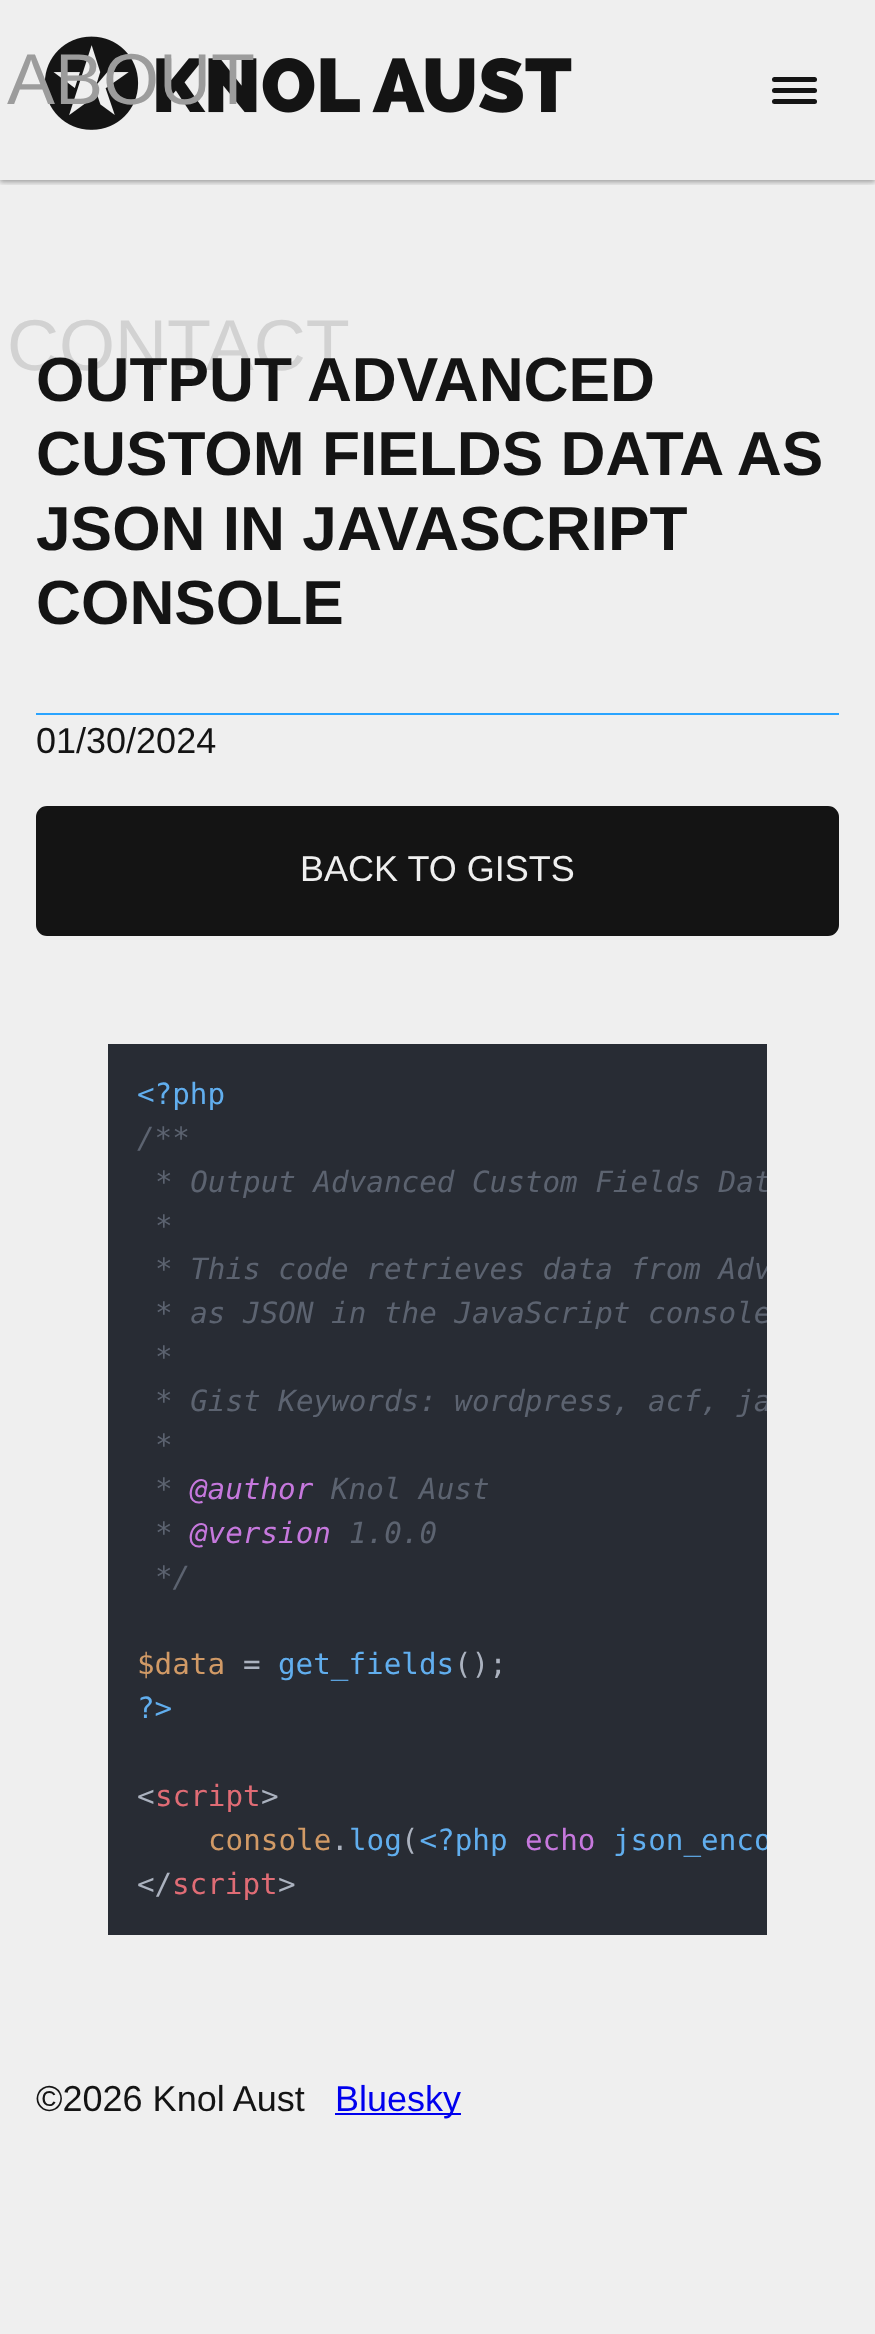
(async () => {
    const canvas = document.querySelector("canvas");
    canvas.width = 875;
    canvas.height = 2334;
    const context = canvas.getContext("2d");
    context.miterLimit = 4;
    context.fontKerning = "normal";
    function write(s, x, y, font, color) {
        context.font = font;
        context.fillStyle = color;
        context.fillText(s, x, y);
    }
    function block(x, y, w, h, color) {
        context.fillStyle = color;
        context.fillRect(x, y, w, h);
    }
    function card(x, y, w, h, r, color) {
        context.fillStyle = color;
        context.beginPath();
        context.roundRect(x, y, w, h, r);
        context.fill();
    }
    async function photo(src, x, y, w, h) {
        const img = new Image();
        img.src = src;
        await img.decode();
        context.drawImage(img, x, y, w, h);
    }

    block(0, 0, 875, 2334, "rgb(239, 239, 239)");
    context.save();
    context.beginPath();
    context.rect(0, 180, 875, 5);
    context.clip();
    context.fillStyle = "rgba(0, 0, 0, 0.24)";
    context.filter = "blur(2px)";
    context.beginPath();
    context.rect(0, 2, 875, 180);
    context.fill();
    context.filter = "none";
    context.fillStyle = "rgba(0, 0, 0, 0.12)";
    context.filter = "blur(3.5px)";
    context.beginPath();
    context.rect(0, 2, 875, 180);
    context.fill();
    context.filter = "none";
    context.restore();
    await photo("media/1.png", 44, 36, 528, 94);
    write("ABOUT", 7, 104, "72px Liberation Sans", "rgb(156, 156, 156)");
    write("CONTACT", 7, 370, "72px Liberation Sans", "rgb(210, 210, 210)");
    card(772, 88, 45, 5, 2.5, "rgb(20, 20, 20)");
    card(772, 77, 45, 5, 2.5, "rgb(20, 20, 20)");
    card(772, 99, 45, 5, 2.5, "rgb(20, 20, 20)");
    block(36, 713, 803, 2, "rgb(42, 164, 255)");
    write("OUTPUT ADVANCED", 36, 401, "bold 62.25px Liberation Sans", "rgb(20, 20, 20)");
    write("CUSTOM FIELDS DATA AS", 36, 475, "bold 62.25px Liberation Sans", "rgb(20, 20, 20)");
    write("JSON IN JAVASCRIPT", 36, 550, "bold 62.25px Liberation Sans", "rgb(20, 20, 20)");
    write("CONSOLE", 36, 624, "bold 62.25px Liberation Sans", "rgb(20, 20, 20)");
    write("01/30/2024", 36, 753, "36px Liberation Sans", "rgb(20, 20, 20)");
    context.beginPath();
    context.roundRect(37, 807, 801, 128, 10);
    context.fill();
    context.strokeStyle = "rgb(20, 20, 20)";
    context.lineWidth = 2;
    context.stroke();
    write("BACK TO GISTS", 300, 881, "36px Liberation Sans", "rgb(239, 239, 239)");
    block(108, 1044, 659, 891, "rgb(40, 44, 52)");
    write("<?php", 137, 1104, "29.25px DejaVu Sans Mono", "rgb(97, 174, 238)");
    write("/**", 137, 1148, "italic 29.25px DejaVu Sans Mono", "rgb(92, 99, 112)");
    context.save();
    context.beginPath();
    context.rect(108, 1044, 659, 891);
    context.clip();
    write("* Output Advanced Custom Fields Dat", 155, 1192, "italic 29.25px DejaVu Sans Mono", "rgb(92, 99, 112)");
    context.restore();
    write("*", 155, 1236, "italic 29.25px DejaVu Sans Mono", "rgb(92, 99, 112)");
    context.save();
    context.beginPath();
    context.rect(108, 1044, 659, 891);
    context.clip();
    write("* This code retrieves data from Adv", 155, 1279, "italic 29.25px DejaVu Sans Mono", "rgb(92, 99, 112)");
    write("* as JSON in the JavaScript console", 155, 1323, "italic 29.25px DejaVu Sans Mono", "rgb(92, 99, 112)");
    context.restore();
    write("*", 155, 1367, "italic 29.25px DejaVu Sans Mono", "rgb(92, 99, 112)");
    context.save();
    context.beginPath();
    context.rect(108, 1044, 659, 891);
    context.clip();
    write("* Gist Keywords: wordpress, acf, ja", 155, 1411, "italic 29.25px DejaVu Sans Mono", "rgb(92, 99, 112)");
    context.restore();
    write("*", 155, 1455, "italic 29.25px DejaVu Sans Mono", "rgb(92, 99, 112)");
    write("*", 155, 1499, "italic 29.25px DejaVu Sans Mono", "rgb(92, 99, 112)");
    write("@author", 190, 1499, "italic 29.25px DejaVu Sans Mono", "rgb(198, 120, 221)");
    write("Knol Aust", 331, 1499, "italic 29.25px DejaVu Sans Mono", "rgb(92, 99, 112)");
    write("*", 155, 1543, "italic 29.25px DejaVu Sans Mono", "rgb(92, 99, 112)");
    write("@version", 190, 1543, "italic 29.25px DejaVu Sans Mono", "rgb(198, 120, 221)");
    write("1.0.0", 349, 1543, "italic 29.25px DejaVu Sans Mono", "rgb(92, 99, 112)");
    write("*/", 155, 1587, "italic 29.25px DejaVu Sans Mono", "rgb(92, 99, 112)");
    write("$data", 137, 1674, "29.25px DejaVu Sans Mono", "rgb(209, 154, 102)");
    write("=", 243, 1674, "29.25px DejaVu Sans Mono", "rgb(171, 178, 191)");
    write("get_fields", 278, 1674, "29.25px DejaVu Sans Mono", "rgb(97, 174, 238)");
    write("();", 454, 1674, "29.25px DejaVu Sans Mono", "rgb(171, 178, 191)");
    write("?>", 137, 1718, "29.25px DejaVu Sans Mono", "rgb(97, 174, 238)");
    write("<", 137, 1806, "29.25px DejaVu Sans Mono", "rgb(171, 178, 191)");
    write("script", 155, 1806, "29.25px DejaVu Sans Mono", "rgb(224, 108, 117)");
    write(">", 261, 1806, "29.25px DejaVu Sans Mono", "rgb(171, 178, 191)");
    write("console", 208, 1850, "29.25px DejaVu Sans Mono", "rgb(209, 154, 102)");
    write("log <?php", 349, 1850, "29.25px DejaVu Sans Mono", "rgb(97, 174, 238)");
    write(".", 331, 1850, "29.25px DejaVu Sans Mono", "rgb(171, 178, 191)");
    write("(", 401, 1850, "29.25px DejaVu Sans Mono", "rgb(171, 178, 191)");
    write("echo", 525, 1850, "29.25px DejaVu Sans Mono", "rgb(198, 120, 221)");
    context.save();
    context.beginPath();
    context.rect(108, 1044, 659, 891);
    context.clip();
    write("json_enco", 613, 1850, "29.25px DejaVu Sans Mono", "rgb(97, 174, 238)");
    context.restore();
    write("<\/", 137, 1894, "29.25px DejaVu Sans Mono", "rgb(171, 178, 191)");
    write("script", 172, 1894, "29.25px DejaVu Sans Mono", "rgb(224, 108, 117)");
    write(">", 278, 1894, "29.25px DejaVu Sans Mono", "rgb(171, 178, 191)");
    write("©2026 Knol Aust", 36, 2111, "36px Liberation Sans", "rgb(20, 20, 20)");
    block(335, 2113, 126, 2, "rgb(0, 0, 238)");
    write("Bluesky", 335, 2111, "36px Liberation Sans", "rgb(0, 0, 238)");
})();
